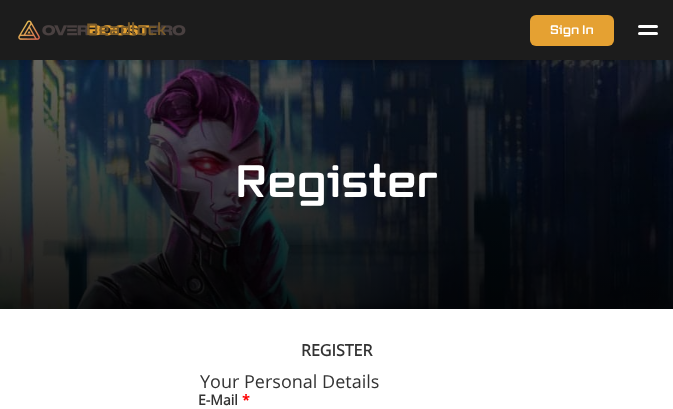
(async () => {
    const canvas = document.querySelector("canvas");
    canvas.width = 673;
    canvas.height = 409;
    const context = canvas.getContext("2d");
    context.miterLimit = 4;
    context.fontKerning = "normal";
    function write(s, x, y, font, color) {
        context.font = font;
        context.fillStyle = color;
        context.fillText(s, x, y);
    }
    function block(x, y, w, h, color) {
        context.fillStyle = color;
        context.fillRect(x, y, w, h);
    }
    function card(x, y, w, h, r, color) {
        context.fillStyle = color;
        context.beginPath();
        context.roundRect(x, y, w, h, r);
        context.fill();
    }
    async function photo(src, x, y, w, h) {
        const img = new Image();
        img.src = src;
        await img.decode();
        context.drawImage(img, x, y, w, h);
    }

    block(0, 0, 673, 409, "rgb(255, 255, 255)");
    block(0, 0, 673, 60, "rgb(28, 28, 28)");
    await photo("media/1.png", 18, 20, 168, 20);
    write("Deadlock", 86, 35, "bold 16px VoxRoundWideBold", "rgb(122, 91, 42)");
    card(530, 15, 84, 31, 6, "rgb(229, 161, 50)");
    write("Sign In", 550, 34, "bold 12px VoxRoundWideBold", "rgb(255, 255, 255)");
    card(638, 25, 20, 3, 1.5, "rgb(255, 255, 255)");
    card(638, 32, 20, 3, 1.5, "rgb(255, 255, 255)");
    await photo("media/2.png", 0, 60, 673, 249);
    write("Register", 235, 197, "bold 44px VoxRoundWideBold", "rgb(255, 255, 255)");
    write("REGISTER", 301, 356, "bold 16px Open Sans", "rgb(51, 51, 51)");
    write("Your Personal Details", 200, 388, "18px Open Sans", "rgb(51, 51, 51)");
    write("E-Mail", 198, 405, "bold 14px Open Sans", "rgb(51, 51, 51)");
    write("*", 242, 405, "bold 14px Open Sans", "rgb(255, 0, 0)");
})();
